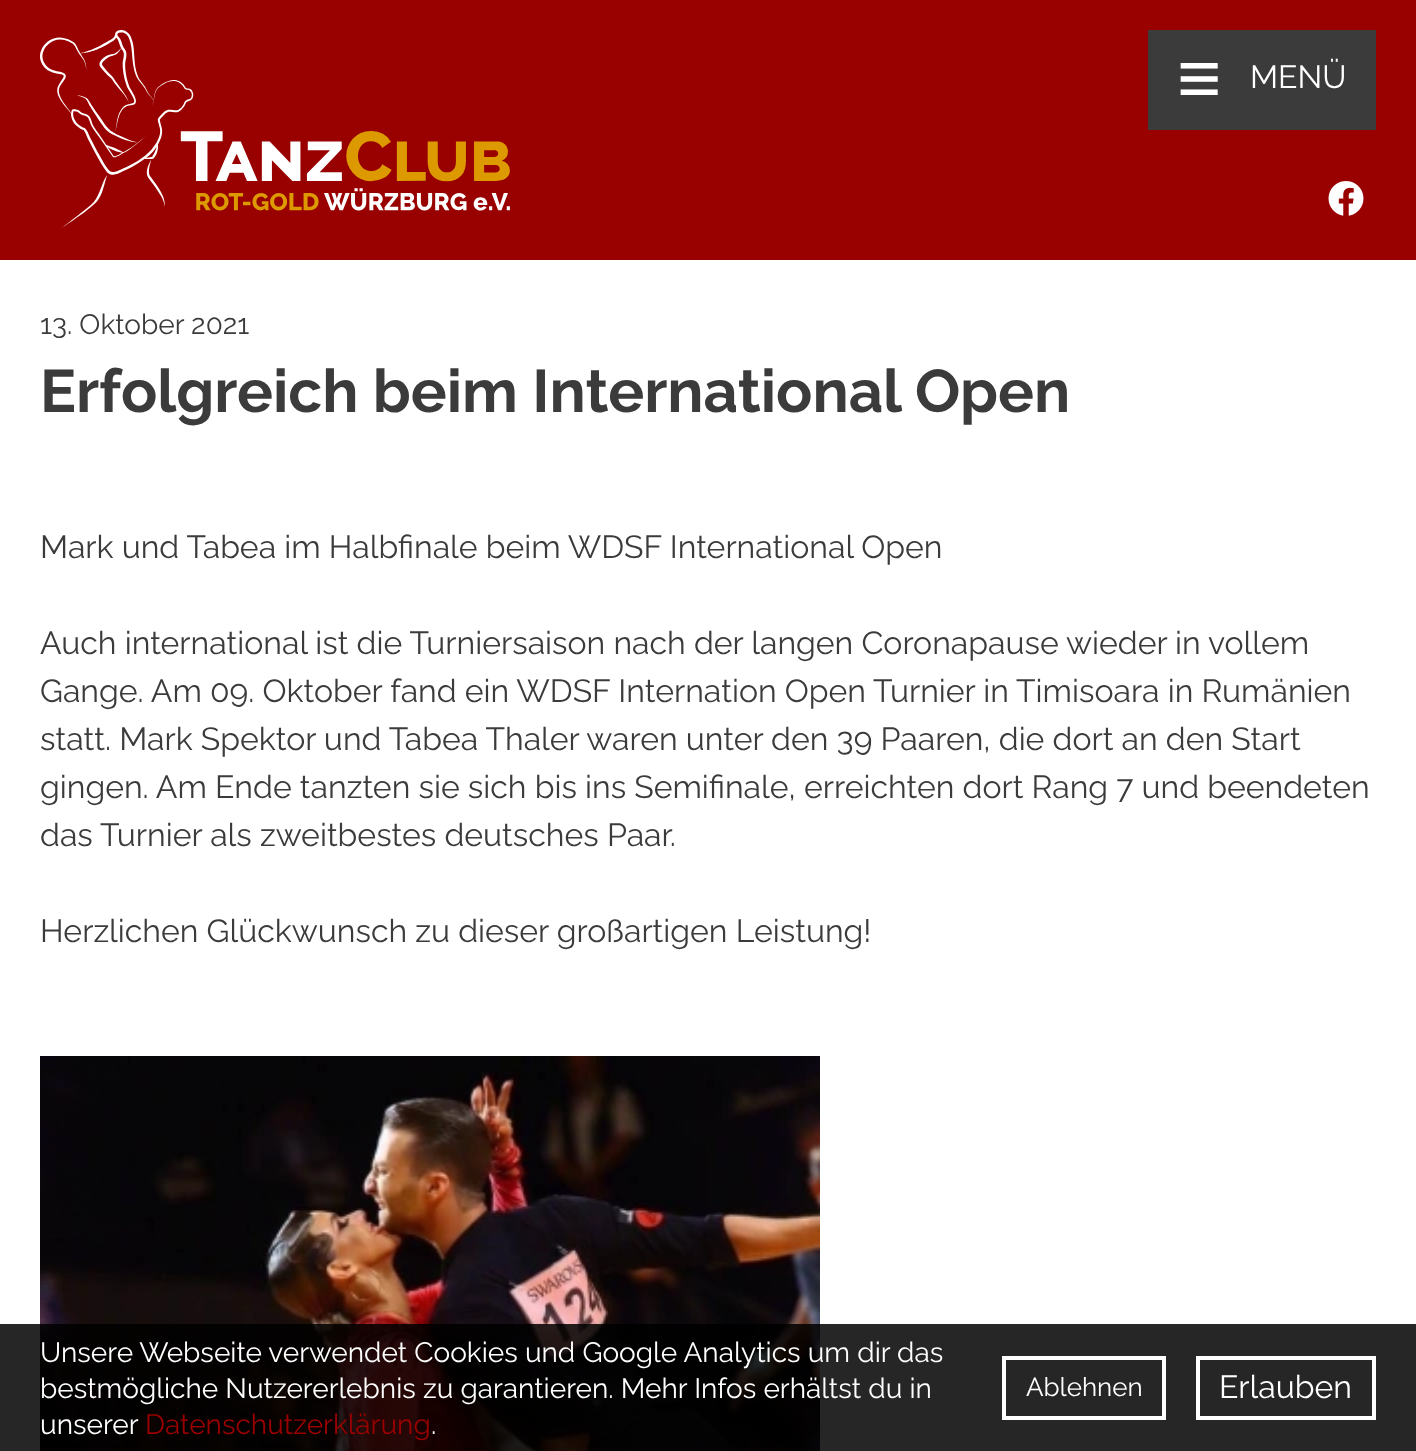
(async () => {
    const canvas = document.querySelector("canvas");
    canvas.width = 1416;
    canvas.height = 1451;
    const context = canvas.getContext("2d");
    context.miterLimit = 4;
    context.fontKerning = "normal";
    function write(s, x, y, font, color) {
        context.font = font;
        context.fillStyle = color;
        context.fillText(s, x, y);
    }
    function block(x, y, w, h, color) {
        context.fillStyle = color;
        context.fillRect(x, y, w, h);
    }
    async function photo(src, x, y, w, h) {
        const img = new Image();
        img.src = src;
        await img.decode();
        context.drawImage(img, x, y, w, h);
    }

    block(0, 0, 1416, 1451, "rgb(255, 255, 255)");
    block(0, 0, 1416, 260, "rgb(153, 0, 0)");
    await photo("media/1.png", 40, 30, 470, 198);
    block(1148, 30, 228, 100, "rgb(59, 59, 60)");
    write("≡", 1177, 104, "76px Liberation Sans", "rgb(255, 255, 255)");
    write("MENÜ", 1250, 88, "100 32px Raleway", "rgb(255, 255, 255)");
    await photo("media/2.png", 1328, 181, 36, 35);
    write("13. Oktober 2021", 40, 334, "100 28px Raleway", "rgb(59, 59, 60)");
    write("Erfolgreich beim International Open", 40, 412, "100 60px 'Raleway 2'", "rgb(59, 59, 60)");
    write("Mark und Tabea im Halbfinale beim WDSF International Open", 40, 558, "100 32px Raleway", "rgb(59, 59, 60)");
    write("Auch international ist die Turniersaison nach der langen Coronapause wieder in vollem", 40, 654, "100 32px Raleway", "rgb(59, 59, 60)");
    write("Gange. Am 09. Oktober fand ein WDSF Internation Open Turnier in Timisoara in Rumänien", 40, 702, "100 32px Raleway", "rgb(59, 59, 60)");
    write("statt. Mark Spektor und Tabea Thaler waren unter den 39 Paaren, die dort an den Start", 40, 750, "100 32px Raleway", "rgb(59, 59, 60)");
    write("gingen. Am Ende tanzten sie sich bis ins Semifinale, erreichten dort Rang 7 und beendeten", 40, 798, "100 32px Raleway", "rgb(59, 59, 60)");
    write("das Turnier als zweitbestes deutsches Paar.", 40, 846, "100 32px Raleway", "rgb(59, 59, 60)");
    write("Herzlichen Glückwunsch zu dieser großartigen Leistung!", 40, 942, "100 32px Raleway", "rgb(59, 59, 60)");
    await photo("media/3.png", 40, 1056, 780, 395);
    block(0, 1324, 1416, 127, "rgba(0, 0, 0, 0.85)");
    write("Unsere Webseite verwendet Cookies und Google Analytics um dir das", 40, 1362, "100 28px Raleway", "rgb(255, 255, 255)");
    write("bestmögliche Nutzererlebnis zu garantieren. Mehr Infos erhältst du in", 40, 1398, "100 28px Raleway", "rgb(255, 255, 255)");
    write("unserer", 40, 1434, "100 28px Raleway", "rgb(255, 255, 255)");
    write("Datenschutzerklärung", 145, 1434, "100 28px Raleway", "rgb(153, 0, 0)");
    write(".", 431, 1434, "100 28px Raleway", "rgb(255, 255, 255)");
    context.strokeStyle = "rgb(255, 255, 255)";
    context.lineWidth = 4;
    context.strokeRect(1004, 1358, 160, 60);
    write("Ablehnen", 1026, 1396, "100 26px Raleway", "rgb(255, 255, 255)");
    context.strokeRect(1198, 1358, 176, 60);
    write("Erlauben", 1219, 1398, "100 32px Raleway", "rgb(255, 255, 255)");
})();
